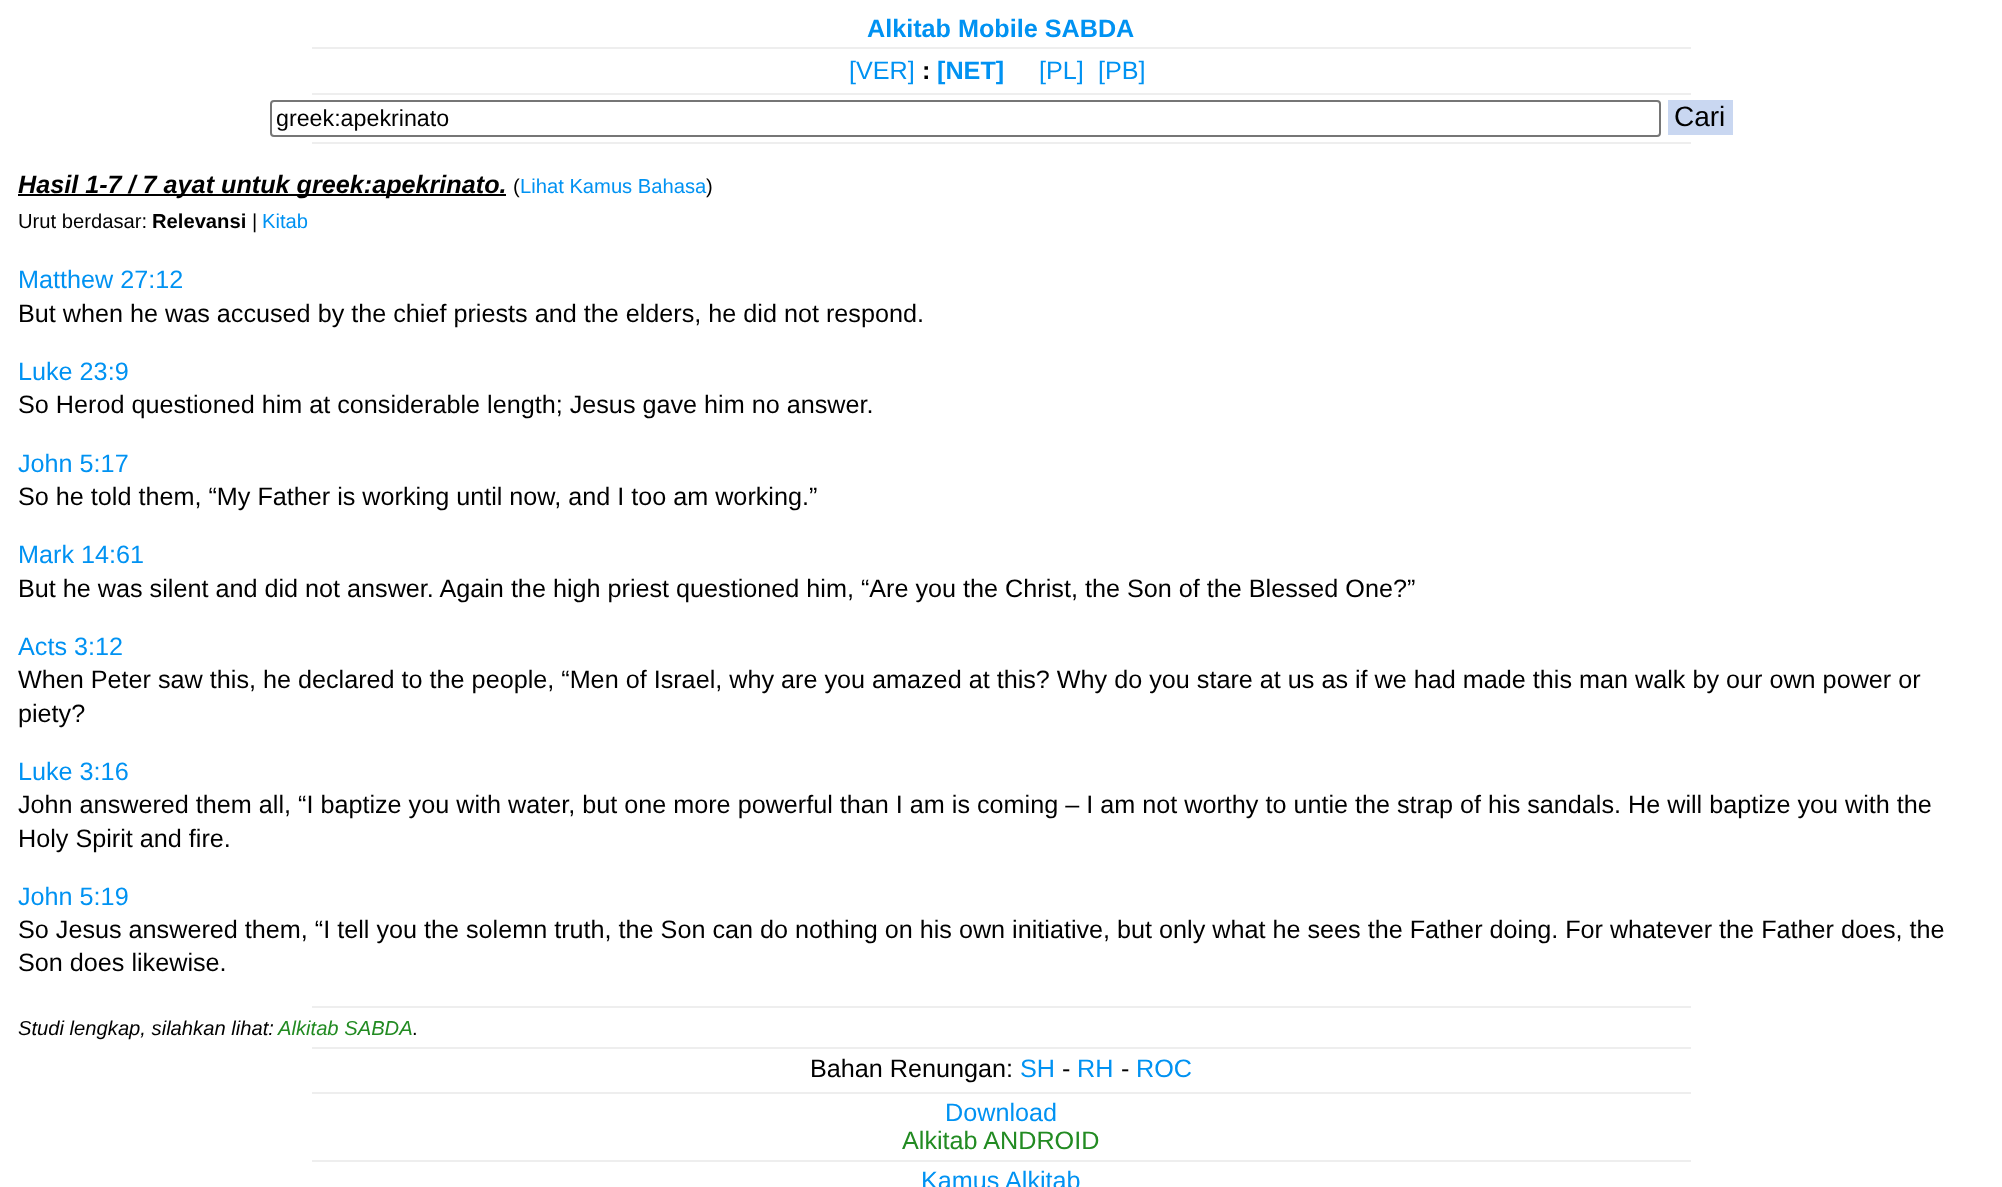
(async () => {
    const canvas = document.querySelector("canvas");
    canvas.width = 2002;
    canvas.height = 1187;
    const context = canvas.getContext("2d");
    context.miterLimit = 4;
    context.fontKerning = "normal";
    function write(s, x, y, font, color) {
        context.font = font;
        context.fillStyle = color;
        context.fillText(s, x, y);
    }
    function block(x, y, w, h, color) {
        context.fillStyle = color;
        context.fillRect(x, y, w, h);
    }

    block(0, 0, 2002, 1187, "rgb(255, 255, 255)");
    write("Alkitab Mobile SABDA", 867, 37, "bold 25.2px Liberation Sans", "rgb(0, 146, 242)");
    block(312, 47, 1379, 2, "rgb(238, 238, 238)");
    write("[VER]", 849, 79, "25.2px Liberation Sans", "rgb(0, 146, 242)");
    write(":", 922, 79, "bold 25.2px Liberation Sans", "rgb(0, 0, 0)");
    write("[NET]", 937, 79, "bold 25.2px Liberation Sans", "rgb(0, 146, 242)");
    write("[PL]", 1039, 79, "25.2px Liberation Sans", "rgb(0, 146, 242)");
    write("[PB]", 1098, 79, "25.2px Liberation Sans", "rgb(0, 146, 242)");
    block(312, 93, 1379, 2, "rgb(238, 238, 238)");
    context.beginPath();
    context.roundRect(271, 101, 1389, 35, 3);
    context.strokeStyle = "rgb(118, 118, 118)";
    context.lineWidth = 2;
    context.stroke();
    write("greek:apekrinato", 276, 126, "23.25px Liberation Sans", "rgb(0, 0, 0)");
    block(1668, 100, 65, 35, "rgb(201, 215, 241)");
    write("Cari", 1674, 126, "28px Liberation Sans", "rgb(0, 0, 0)");
    block(312, 142, 1379, 2, "rgb(238, 238, 238)");
    block(18, 194, 488, 2, "rgb(0, 0, 0)");
    write("Hasil 1-7 / 7 ayat untuk greek:apekrinato.", 18, 193, "italic bold 25.2px Liberation Sans", "rgb(0, 0, 0)");
    write("(", 513, 193, "20.2px Liberation Sans", "rgb(0, 0, 0)");
    write("Lihat Kamus Bahasa", 520, 193, "20.2px Liberation Sans", "rgb(0, 146, 242)");
    write(")", 706, 193, "20.2px Liberation Sans", "rgb(0, 0, 0)");
    write("Urut berdasar:", 18, 228, "20.2px Liberation Sans", "rgb(0, 0, 0)");
    write("Relevansi", 152, 228, "bold 20.2px Liberation Sans", "rgb(0, 0, 0)");
    write("|", 252, 228, "20.2px Liberation Sans", "rgb(0, 0, 0)");
    write("Kitab", 262, 228, "20.2px Liberation Sans", "rgb(0, 146, 242)");
    write("Matthew 27:12", 18, 288, "25.2px Liberation Sans", "rgb(0, 146, 242)");
    write("But when he was accused by the chief priests and the elders, he did not respond.", 18, 322, "25.2px Liberation Sans", "rgb(0, 0, 0)");
    write("Luke 23:9", 18, 380, "25.2px Liberation Sans", "rgb(0, 146, 242)");
    write("So Herod questioned him at considerable length; Jesus gave him no answer.", 18, 413, "25.2px Liberation Sans", "rgb(0, 0, 0)");
    write("John 5:17", 18, 472, "25.2px Liberation Sans", "rgb(0, 146, 242)");
    write("So he told them, “My Father is working until now, and I too am working.”", 18, 505, "25.2px Liberation Sans", "rgb(0, 0, 0)");
    write("Mark 14:61", 18, 563, "25.2px Liberation Sans", "rgb(0, 146, 242)");
    write("But he was silent and did not answer. Again the high priest questioned him, “Are you the Christ, the Son of the Blessed One?”", 18, 597, "25.2px Liberation Sans", "rgb(0, 0, 0)");
    write("Acts 3:12", 18, 655, "25.2px Liberation Sans", "rgb(0, 146, 242)");
    write("When Peter saw this, he declared to the people, “Men of Israel, why are you amazed at this? Why do you stare at us as if we had made this man walk by our own power or", 18, 688, "25.2px Liberation Sans", "rgb(0, 0, 0)");
    write("piety?", 18, 722, "25.2px Liberation Sans", "rgb(0, 0, 0)");
    write("Luke 3:16", 18, 780, "25.2px Liberation Sans", "rgb(0, 146, 242)");
    write("John answered them all, “I baptize you with water, but one more powerful than I am is coming – I am not worthy to untie the strap of his sandals. He will baptize you with the", 18, 813, "25.2px Liberation Sans", "rgb(0, 0, 0)");
    write("Holy Spirit and fire.", 18, 847, "25.2px Liberation Sans", "rgb(0, 0, 0)");
    write("John 5:19", 18, 905, "25.2px Liberation Sans", "rgb(0, 146, 242)");
    write("So Jesus answered them, “I tell you the solemn truth, the Son can do nothing on his own initiative, but only what he sees the Father doing. For whatever the Father does, the", 18, 938, "25.2px Liberation Sans", "rgb(0, 0, 0)");
    write("Son does likewise.", 18, 971, "25.2px Liberation Sans", "rgb(0, 0, 0)");
    block(312, 1006, 1379, 2, "rgb(238, 238, 238)");
    write("Studi lengkap, silahkan lihat:", 18, 1035, "italic 20.2px Liberation Sans", "rgb(0, 0, 0)");
    write("Alkitab SABDA", 278, 1035, "italic 20.2px Liberation Sans", "rgb(34, 139, 34)");
    write(".", 412, 1035, "20.2px Liberation Sans", "rgb(0, 0, 0)");
    block(312, 1047, 1379, 2, "rgb(238, 238, 238)");
    write("Bahan Renungan:", 810, 1077, "25.2px Liberation Sans", "rgb(0, 0, 0)");
    write("SH", 1020, 1077, "25.2px Liberation Sans", "rgb(0, 146, 242)");
    write("-", 1062, 1077, "25.2px Liberation Sans", "rgb(0, 0, 0)");
    write("RH", 1077, 1077, "25.2px Liberation Sans", "rgb(0, 146, 242)");
    write("-", 1121, 1077, "25.2px Liberation Sans", "rgb(0, 0, 0)");
    write("ROC", 1136, 1077, "25.2px Liberation Sans", "rgb(0, 146, 242)");
    block(312, 1092, 1379, 2, "rgb(238, 238, 238)");
    write("Download", 945, 1121, "25.2px Liberation Sans", "rgb(0, 146, 242)");
    write("Alkitab ANDROID", 902, 1149, "25.2px Liberation Sans", "rgb(34, 139, 34)");
    block(312, 1160, 1379, 2, "rgb(238, 238, 238)");
    write("Kamus Alkitab", 921, 1189, "25.2px Liberation Sans", "rgb(0, 146, 242)");
})();
